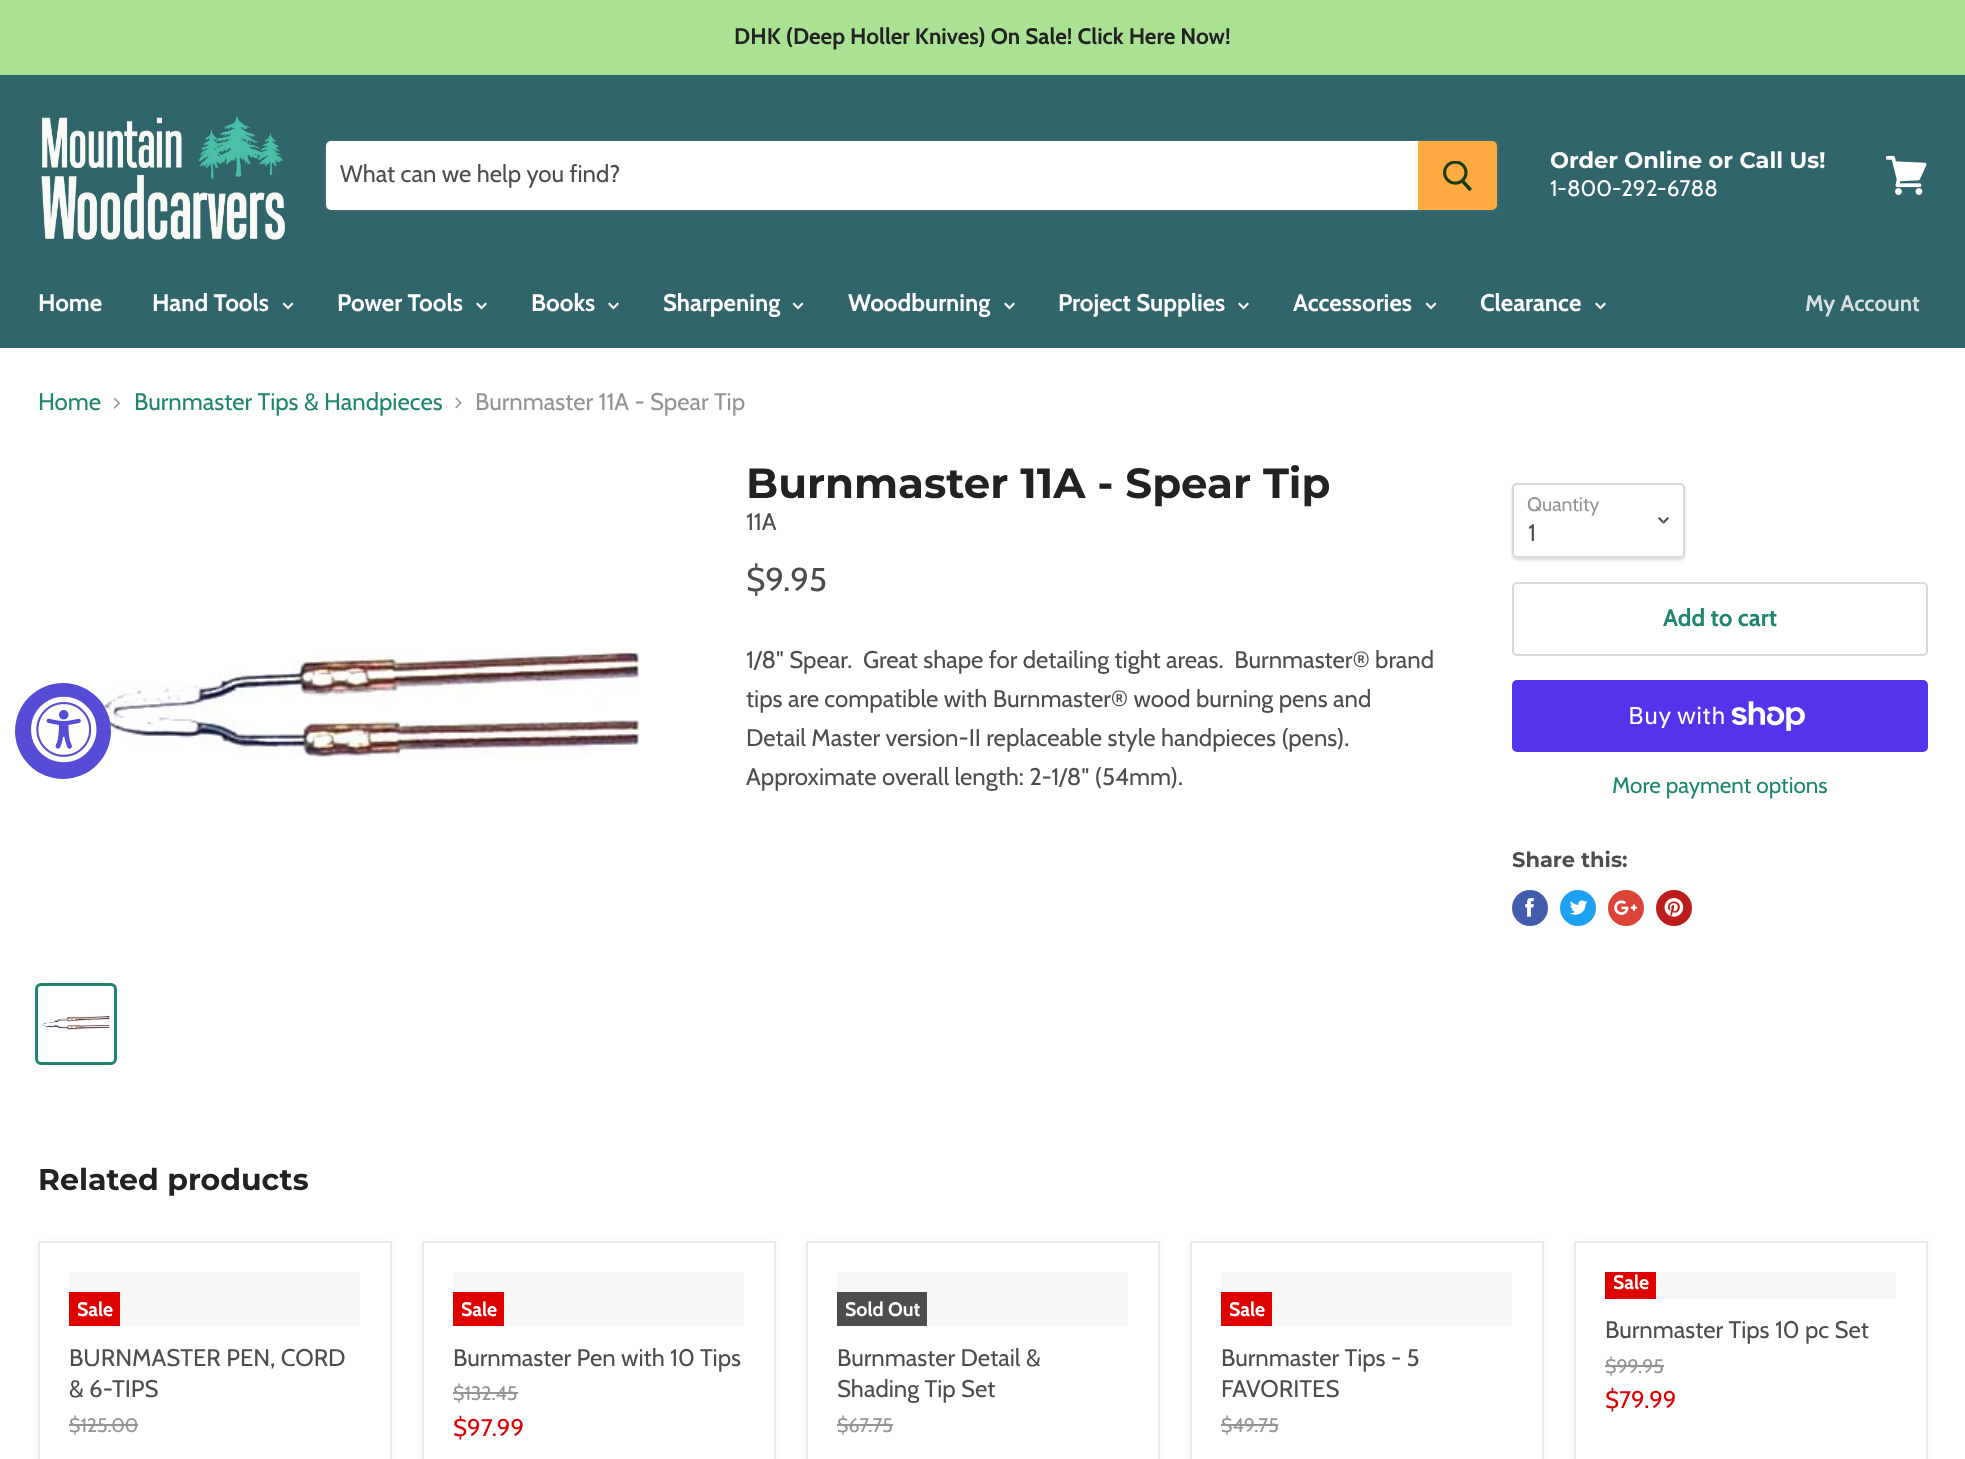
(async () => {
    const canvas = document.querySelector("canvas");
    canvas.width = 1965;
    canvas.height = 1459;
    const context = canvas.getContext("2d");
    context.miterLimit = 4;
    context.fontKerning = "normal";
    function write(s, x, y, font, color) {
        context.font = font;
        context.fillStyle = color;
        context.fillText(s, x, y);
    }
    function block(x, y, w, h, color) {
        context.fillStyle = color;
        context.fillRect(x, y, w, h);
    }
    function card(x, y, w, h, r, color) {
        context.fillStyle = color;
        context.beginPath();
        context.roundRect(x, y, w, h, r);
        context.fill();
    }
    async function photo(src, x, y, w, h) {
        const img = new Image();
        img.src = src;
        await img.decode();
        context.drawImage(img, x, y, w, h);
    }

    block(0, 0, 1965, 1459, "rgb(255, 255, 255)");
    block(0, 75, 1965, 273, "rgb(48, 101, 107)");
    block(0, 0, 1965, 75, "rgb(170, 226, 148)");
    write("DHK (Deep Holler Knives) On Sale! Click Here Now!", 734, 44, "bold 22.5px Cabin", "rgb(34, 34, 34)");
    await photo("media/1.png", 41, 116, 244, 124);
    context.beginPath();
    context.roundRect(325, 141, 1173, 70, [4, 5, 5, 4]);
    context.strokeStyle = "rgba(127, 127, 127, 0.2)";
    context.lineWidth = 2;
    context.stroke();
    context.fillStyle = "rgb(255, 255, 255)";
    context.beginPath();
    context.roundRect(326, 141, 1092, 69, [5, 0, 0, 5]);
    context.fill();
    write("What can we help you find?", 340, 182, "24px Cabin", "rgb(77, 77, 77)");
    context.fillStyle = "rgb(255, 171, 65)";
    context.beginPath();
    context.roundRect(1419, 142, 77, 67, [0, 4, 4, 0]);
    context.fill();
    context.strokeStyle = "rgb(255, 171, 65)";
    context.stroke();
    await photo("media/2.png", 1443, 161, 29, 31);
    write("Order Online or Call Us!", 1550, 168, "bold 22.5px Montserrat", "rgb(255, 255, 255)");
    write("1-800-292-6788", 1550, 196, "22.5px Cabin", "rgb(255, 255, 255)");
    await photo("media/3.png", 1886, 156, 41, 39);
    write("Home", 38, 311, "bold 24px Cabin", "rgb(255, 255, 255)");
    write("Hand Tools", 152, 311, "bold 24px Cabin", "rgb(255, 255, 255)");
    await photo("media/4.png", 282, 302, 12, 8);
    write("Power Tools", 337, 311, "bold 24px Cabin", "rgb(255, 255, 255)");
    await photo("media/5.png", 476, 302, 11, 8);
    write("Books", 531, 311, "bold 24px Cabin", "rgb(255, 255, 255)");
    await photo("media/5.png", 608, 302, 11, 8);
    write("Sharpening", 663, 311, "bold 24px Cabin", "rgb(255, 255, 255)");
    await photo("media/4.png", 792, 302, 12, 8);
    write("Woodburning", 848, 311, "bold 24px Cabin", "rgb(255, 255, 255)");
    await photo("media/5.png", 1004, 302, 11, 8);
    write("Project Supplies", 1058, 311, "bold 24px Cabin", "rgb(255, 255, 255)");
    await photo("media/5.png", 1238, 302, 11, 8);
    write("Accessories", 1293, 311, "bold 24px Cabin", "rgb(255, 255, 255)");
    await photo("media/4.png", 1425, 302, 12, 8);
    write("Clearance", 1480, 311, "bold 24px Cabin", "rgb(255, 255, 255)");
    await photo("media/5.png", 1595, 302, 11, 8);
    write("My Account", 1805, 311, "bold 22.5px Cabin", "rgb(214, 224, 225)");
    write("Home", 38, 410, "24px Cabin", "rgb(30, 133, 112)");
    await photo("media/6.png", 113, 397, 7, 12);
    write("Burnmaster Tips & Handpieces", 134, 410, "24px Cabin", "rgb(30, 133, 112)");
    await photo("media/7.png", 455, 397, 7, 12);
    write("Burnmaster 11A - Spear Tip", 475, 410, "24px Cabin", "rgb(148, 148, 148)");
    await photo("media/8.png", 88, 649, 552, 108);
    context.beginPath();
    context.roundRect(36.5, 984.5, 79, 79, 4.5);
    context.strokeStyle = "rgb(30, 133, 112)";
    context.lineWidth = 3;
    context.stroke();
    await photo("media/9.png", 40, 1015, 70, 15);
    write("Burnmaster 11A - Spear Tip", 746, 498, "bold 42px Montserrat", "rgb(34, 34, 34)");
    write("11A", 746, 530, "24px Cabin", "rgb(77, 77, 77)");
    write("$9.95", 746, 591, "33px Cabin", "rgb(77, 77, 77)");
    write("1/8\" Spear.  Great shape for detailing tight areas.  Burnmaster® brand", 746, 668, "24px Cabin", "rgb(77, 77, 77)");
    write("tips are compatible with Burnmaster® wood burning pens and", 746, 707, "24px Cabin", "rgb(77, 77, 77)");
    write("Detail Master version-II replaceable style handpieces (pens).", 746, 746, "24px Cabin", "rgb(77, 77, 77)");
    write("Approximate overall length: 2-1/8\" (54mm).", 746, 785, "24px Cabin", "rgb(77, 77, 77)");
    context.save();
    context.beginPath();
    context.moveTo(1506, 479);
    context.lineTo(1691, 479);
    context.lineTo(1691, 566);
    context.lineTo(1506, 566);
    context.closePath();
    context.moveTo(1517, 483);
    context.lineTo(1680, 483);
    context.bezierCurveTo(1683, 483, 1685, 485, 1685, 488);
    context.lineTo(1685, 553);
    context.bezierCurveTo(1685, 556, 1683, 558, 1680, 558);
    context.lineTo(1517, 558);
    context.bezierCurveTo(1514, 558, 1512, 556, 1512, 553);
    context.lineTo(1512, 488);
    context.bezierCurveTo(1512, 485, 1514, 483, 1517, 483);
    context.closePath();
    context.clip("evenodd");
    context.fillStyle = "rgba(0, 0, 0, 0.15)";
    context.filter = "blur(1.5px)";
    context.beginPath();
    context.roundRect(1512, 485, 173, 75, 5);
    context.fill();
    context.filter = "none";
    context.restore();
    context.beginPath();
    context.roundRect(1513, 484, 171, 73, 4);
    context.strokeStyle = "rgba(127, 127, 127, 0.3)";
    context.lineWidth = 2;
    context.stroke();
    write("Quantity", 1527, 511, "19.5px Cabin", "rgb(148, 148, 148)");
    await photo("media/10.png", 1658, 517, 11, 7);
    write("1", 1528, 541, "24px Cabin", "rgb(77, 77, 77)");
    context.beginPath();
    context.roundRect(1513, 583, 414, 72, 4);
    context.strokeStyle = "rgb(217, 217, 217)";
    context.stroke();
    write("Add to cart", 1663, 626, "bold 24px Cabin", "rgb(30, 133, 112)");
    card(1512, 680, 416, 72, 5, "rgb(84, 51, 235)");
    write("Buy with", 1628, 724, "24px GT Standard", "rgb(255, 255, 255)");
    await photo("media/11.png", 1731, 701, 74, 30);
    write("More payment options", 1612, 793, "22.5px Cabin", "rgb(30, 133, 112)");
    write("Share this:", 1512, 867, "bold 21px Montserrat", "rgb(77, 77, 77)");
    context.fillStyle = "rgb(66, 93, 171)";
    context.beginPath();
    context.arc(1530, 908, 18, 0, Math.PI * 2);
    context.fill();
    await photo("media/12.png", 1525, 898, 9, 19);
    context.fillStyle = "rgb(29, 161, 242)";
    context.beginPath();
    context.arc(1578, 908, 18, 0, Math.PI * 2);
    context.fill();
    await photo("media/13.png", 1569, 900, 19, 15);
    context.fillStyle = "rgb(219, 68, 55)";
    context.beginPath();
    context.arc(1626, 908, 18, 0, Math.PI * 2);
    context.fill();
    await photo("media/14.png", 1614, 900, 23, 15);
    context.fillStyle = "rgb(189, 28, 28)";
    context.beginPath();
    context.arc(1674, 908, 18, 0, Math.PI * 2);
    context.fill();
    await photo("media/15.png", 1664, 898, 20, 19);
    write("Related products", 38, 1190, "bold 30px Montserrat", "rgb(34, 34, 34)");
    context.fillStyle = "rgba(127, 127, 127, 0.11)";
    context.filter = "blur(3px)";
    context.beginPath();
    context.rect(38, 1242, 354, 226);
    context.fill();
    context.filter = "none";
    context.fillStyle = "rgb(255, 255, 255)";
    context.beginPath();
    context.rect(39, 1242, 352, 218);
    context.fill();
    context.strokeStyle = "rgb(235, 235, 235)";
    context.stroke();
    block(69, 1272, 291, 54, "rgb(247, 247, 247)");
    block(69, 1292, 51, 34, "rgb(222, 1, 1)");
    write("Sale", 77, 1316, "bold 19.5px Cabin", "rgb(255, 255, 255)");
    write("BURNMASTER PEN, CORD", 69, 1366, "24px Cabin", "rgb(77, 77, 77)");
    write("& 6-TIPS", 69, 1397, "24px Cabin", "rgb(77, 77, 77)");
    write("$125.00", 69, 1432, "19.5px Cabin", "rgb(148, 148, 148)");
    block(69, 1424, 69, 2, "rgb(148, 148, 148)");
    context.fillStyle = "rgba(127, 127, 127, 0.11)";
    context.filter = "blur(3px)";
    context.beginPath();
    context.rect(422, 1242, 354, 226);
    context.fill();
    context.filter = "none";
    context.fillStyle = "rgb(255, 255, 255)";
    context.beginPath();
    context.rect(423, 1242, 352, 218);
    context.fill();
    context.stroke();
    block(453, 1272, 291, 54, "rgb(247, 247, 247)");
    block(453, 1292, 51, 34, "rgb(222, 1, 1)");
    write("Sale", 461, 1316, "bold 19.5px Cabin", "rgb(255, 255, 255)");
    write("Burnmaster Pen with 10 Tips", 453, 1366, "24px Cabin", "rgb(77, 77, 77)");
    write("$132.45", 453, 1400, "19.5px Cabin", "rgb(148, 148, 148)");
    block(453, 1392, 65, 2, "rgb(148, 148, 148)");
    write("$97.99", 453, 1436, "24px Cabin", "rgb(222, 1, 1)");
    context.fillStyle = "rgba(127, 127, 127, 0.11)";
    context.filter = "blur(3px)";
    context.beginPath();
    context.rect(806, 1242, 354, 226);
    context.fill();
    context.filter = "none";
    context.fillStyle = "rgb(255, 255, 255)";
    context.beginPath();
    context.rect(807, 1242, 352, 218);
    context.fill();
    context.stroke();
    block(837, 1272, 291, 54, "rgb(247, 247, 247)");
    block(837, 1292, 90, 34, "rgb(77, 77, 77)");
    write("Sold Out", 845, 1316, "bold 19.5px Cabin", "rgb(255, 255, 255)");
    write("Burnmaster Detail &", 837, 1366, "24px Cabin", "rgb(77, 77, 77)");
    write("Shading Tip Set", 837, 1397, "24px Cabin", "rgb(77, 77, 77)");
    write("$67.75", 837, 1432, "19.5px Cabin", "rgb(148, 148, 148)");
    block(837, 1424, 56, 2, "rgb(148, 148, 148)");
    context.fillStyle = "rgba(127, 127, 127, 0.11)";
    context.filter = "blur(3px)";
    context.beginPath();
    context.rect(1190, 1242, 354, 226);
    context.fill();
    context.filter = "none";
    context.fillStyle = "rgb(255, 255, 255)";
    context.beginPath();
    context.rect(1191, 1242, 352, 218);
    context.fill();
    context.stroke();
    block(1221, 1272, 291, 54, "rgb(247, 247, 247)");
    block(1221, 1292, 51, 34, "rgb(222, 1, 1)");
    write("Sale", 1229, 1316, "bold 19.5px Cabin", "rgb(255, 255, 255)");
    write("Burnmaster Tips - 5", 1221, 1366, "24px Cabin", "rgb(77, 77, 77)");
    write("FAVORITES", 1221, 1397, "24px Cabin", "rgb(77, 77, 77)");
    write("$49.75", 1221, 1432, "19.5px Cabin", "rgb(148, 148, 148)");
    block(1221, 1424, 57, 2, "rgb(148, 148, 148)");
    context.fillStyle = "rgba(127, 127, 127, 0.11)";
    context.filter = "blur(3px)";
    context.beginPath();
    context.rect(1574, 1242, 354, 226);
    context.fill();
    context.filter = "none";
    context.fillStyle = "rgb(255, 255, 255)";
    context.beginPath();
    context.rect(1575, 1242, 352, 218);
    context.fill();
    context.stroke();
    block(1605, 1272, 51, 27, "rgb(222, 1, 1)");
    write("Sale", 1613, 1289, "bold 19.5px Cabin", "rgb(255, 255, 255)");
    block(1656, 1272, 240, 27, "rgb(247, 247, 247)");
    write("Burnmaster Tips 10 pc Set", 1605, 1338, "24px Cabin", "rgb(77, 77, 77)");
    write("$99.95", 1605, 1373, "19.5px Cabin", "rgb(148, 148, 148)");
    block(1605, 1365, 59, 2, "rgb(148, 148, 148)");
    write("$79.99", 1605, 1408, "24px Cabin", "rgb(222, 1, 1)");
    context.fillStyle = "rgb(87, 76, 213)";
    context.beginPath();
    context.arc(63, 731, 48, 0, Math.PI * 2);
    context.fill();
    await photo("media/16.png", 31, 696, 66, 67);
})();
